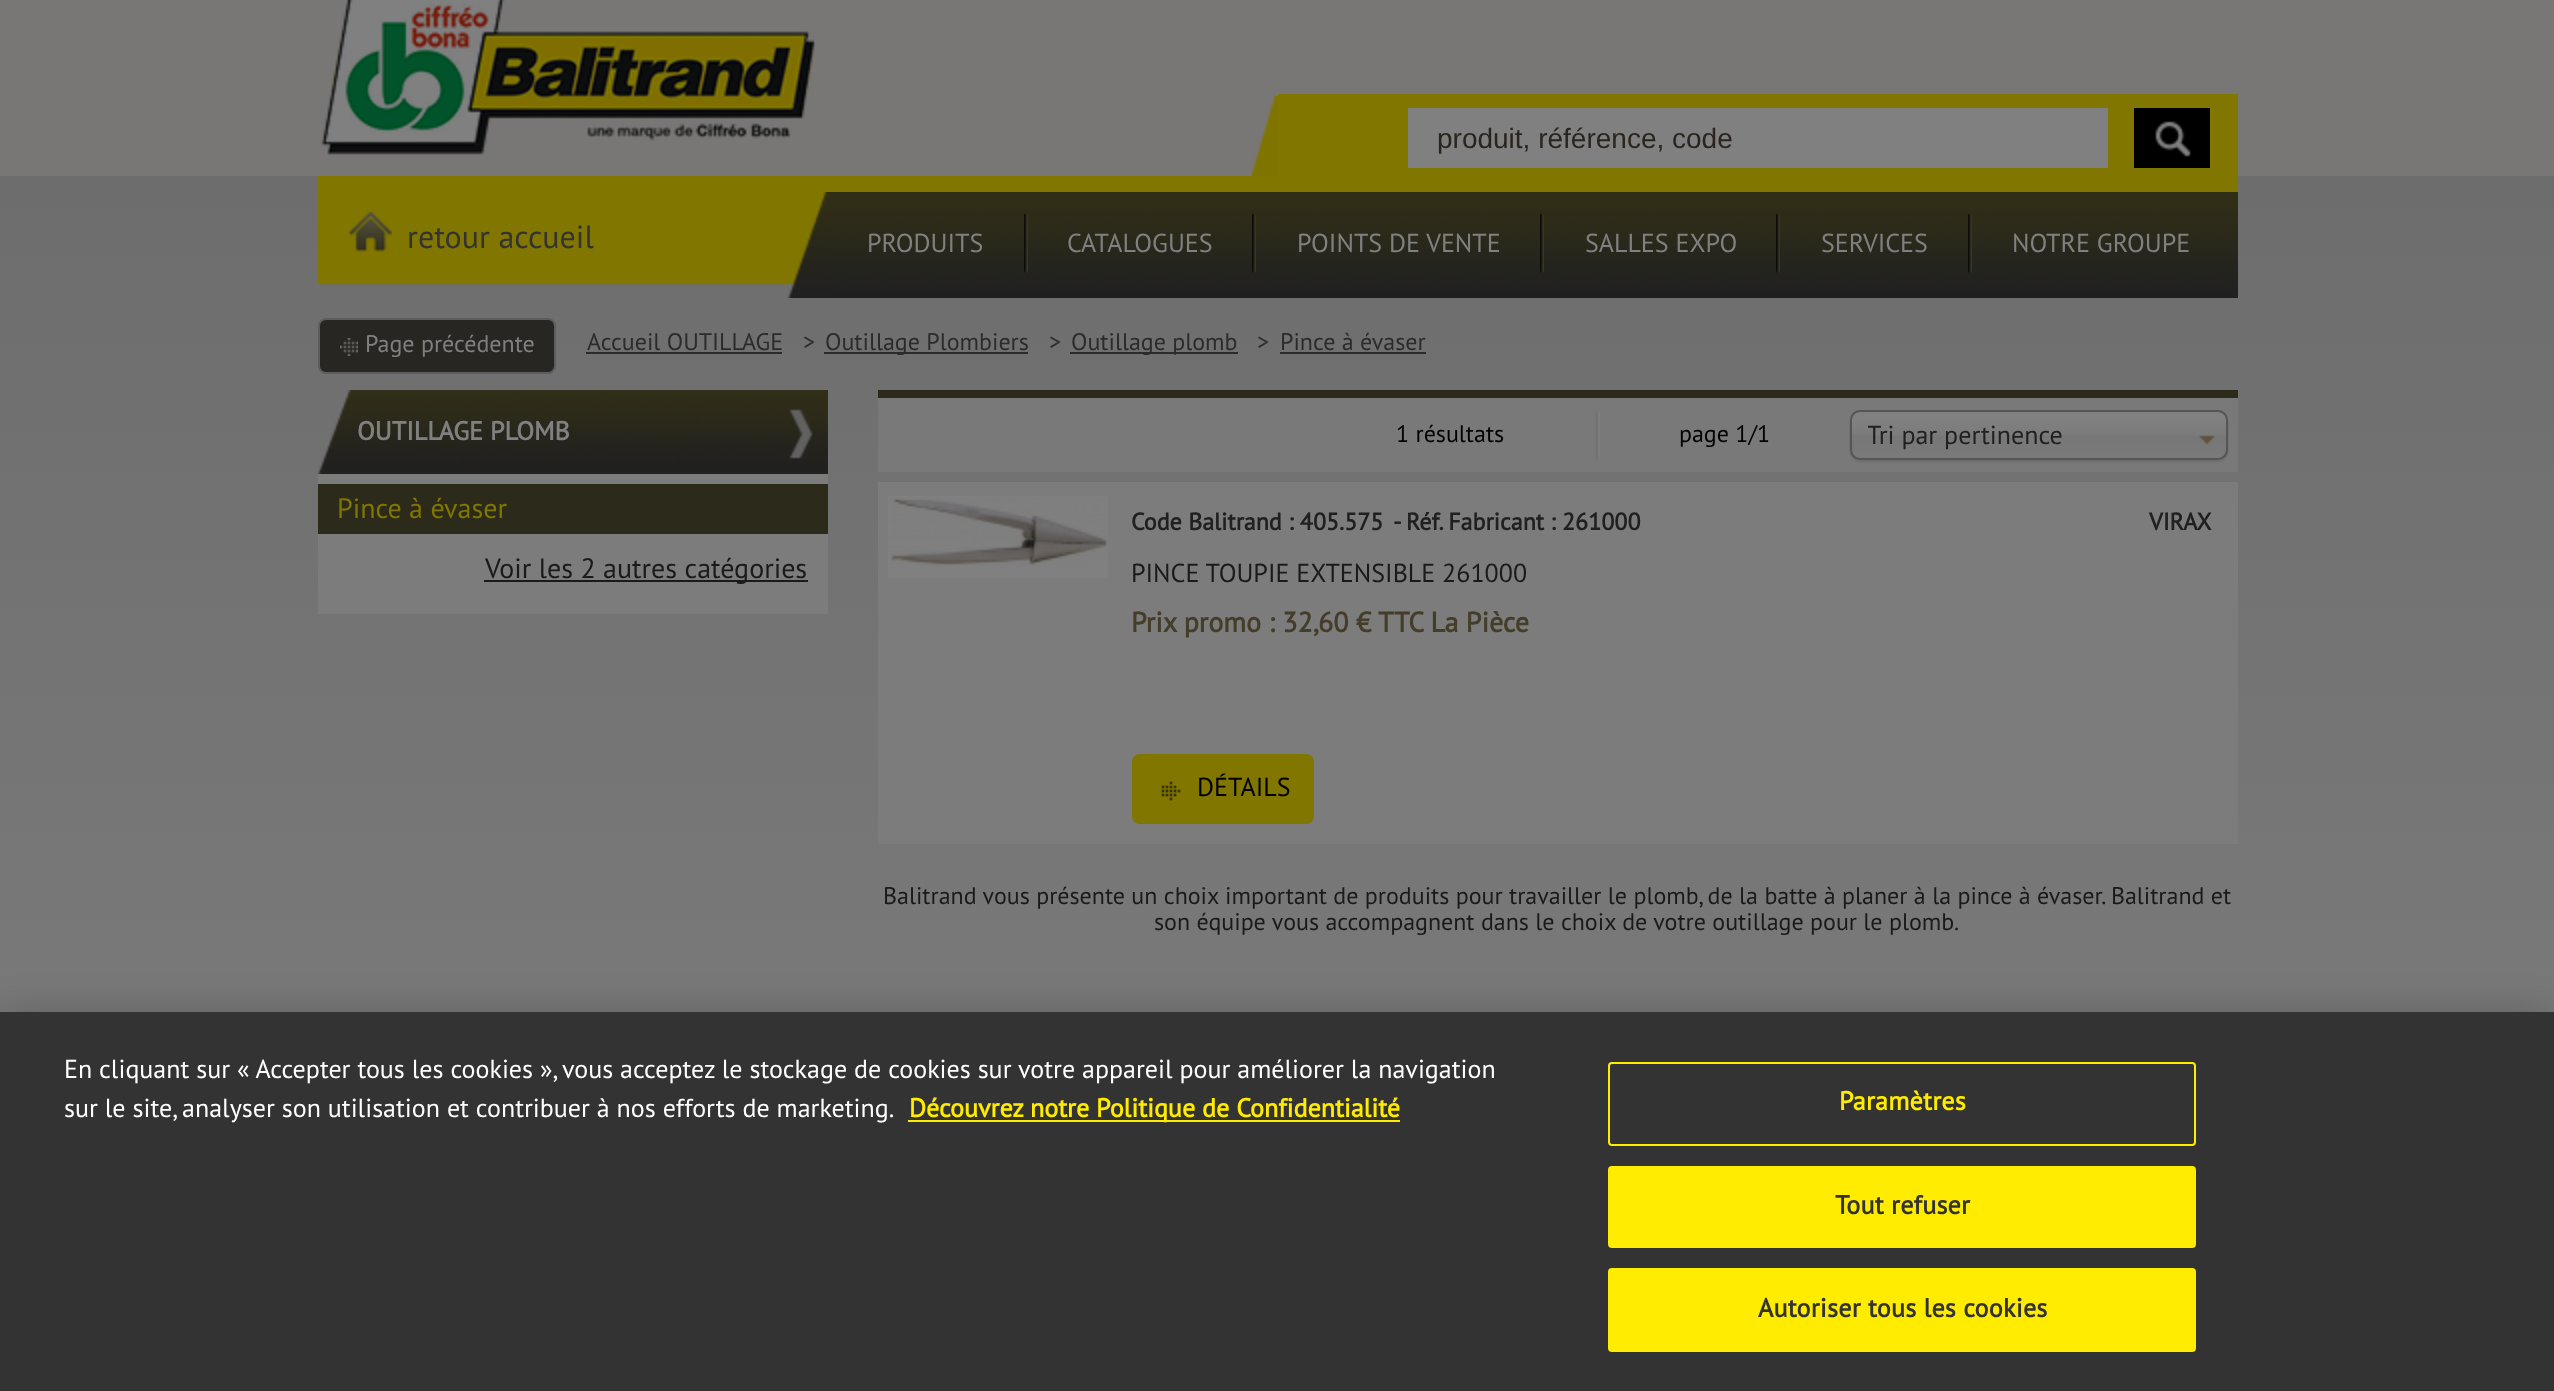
(async () => {
    const canvas = document.querySelector("canvas");
    canvas.width = 2554;
    canvas.height = 1391;
    const context = canvas.getContext("2d");
    context.miterLimit = 4;
    context.fontKerning = "normal";
    function write(s, x, y, font, color) {
        context.font = font;
        context.fillStyle = color;
        context.fillText(s, x, y);
    }
    function block(x, y, w, h, color) {
        context.fillStyle = color;
        context.fillRect(x, y, w, h);
    }
    function card(x, y, w, h, r, color) {
        context.fillStyle = color;
        context.beginPath();
        context.roundRect(x, y, w, h, r);
        context.fill();
    }
    async function photo(src, x, y, w, h) {
        const img = new Image();
        img.src = src;
        await img.decode();
        context.drawImage(img, x, y, w, h);
    }
    let gradient;

    block(0, 0, 2554, 1391, "rgb(255, 255, 255)");
    gradient = context.createLinearGradient(1277, -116, 1277, 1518);
    gradient.addColorStop(0, "rgb(105, 105, 105)");
    gradient.addColorStop(1, "rgb(128, 128, 128)");
    context.fillStyle = gradient;
    context.fillRect(0, 176, 2554, 836);
    block(0, 0, 2554, 176, "rgb(121, 119, 117)");
    await photo("media/1.png", 321, 0, 494, 155);
    await photo("media/2.png", 1250, 96, 28, 80);
    block(1278, 94, 960, 82, "rgb(128, 118, 0)");
    block(1408, 108, 700, 60, "rgb(128, 128, 128)");
    write("produit, référence, code", 1437, 148, "28px Liberation Sans", "rgb(41, 36, 30)");
    await photo("media/3.png", 2134, 108, 76, 60);
    await photo("media/4.png", 318, 176, 1920, 109);
    await photo("media/5.png", 348, 212, 44, 40);
    write("retour accueil", 407, 248, "32px PT Sans", "rgb(51, 51, 51)");
    await photo("media/6.png", 788, 192, 40, 106);
    await photo("media/7.png", 828, 192, 1410, 106);
    write("PRODUITS", 867, 252, "26px PT Sans", "rgb(128, 128, 128)");
    await photo("media/8.png", 1024, 213, 4, 60);
    write("CATALOGUES", 1067, 252, "26px PT Sans", "rgb(128, 128, 128)");
    await photo("media/8.png", 1252, 213, 4, 60);
    write("POINTS DE VENTE", 1297, 252, "26px PT Sans", "rgb(128, 128, 128)");
    await photo("media/8.png", 1540, 213, 4, 60);
    write("SALLES EXPO", 1585, 252, "26px PT Sans", "rgb(128, 128, 128)");
    await photo("media/8.png", 1776, 213, 4, 60);
    write("SERVICES", 1821, 252, "26px PT Sans", "rgb(128, 128, 128)");
    await photo("media/8.png", 1968, 213, 4, 60);
    write("NOTRE GROUPE", 2012, 252, "26px PT Sans", "rgb(128, 128, 128)");
    context.fillStyle = "rgb(39, 38, 35)";
    context.beginPath();
    context.roundRect(319, 319, 236, 54, 7);
    context.fill();
    context.strokeStyle = "rgb(94, 93, 93)";
    context.lineWidth = 2;
    context.stroke();
    await photo("media/9.png", 340, 338, 18, 18);
    write("Page précédente", 365, 352, "24px PT Sans", "rgb(128, 128, 128)");
    write("Accueil OUTILLAGE", 587, 350, "24px PT Sans", "rgb(43, 43, 43)");
    block(586, 352, 196, 2, "rgb(43, 43, 43)");
    write(">", 803, 350, "24px PT Sans", "rgb(43, 43, 43)");
    block(824, 352, 204, 2, "rgb(43, 43, 43)");
    write("Outillage Plombiers", 825, 350, "24px PT Sans", "rgb(43, 43, 43)");
    write(">", 1049, 350, "24px PT Sans", "rgb(43, 43, 43)");
    block(1070, 352, 168, 2, "rgb(43, 43, 43)");
    write("Outillage plomb", 1071, 350, "24px PT Sans", "rgb(43, 43, 43)");
    write(">", 1257, 350, "24px PT Sans", "rgb(43, 43, 43)");
    write("Pince à évaser", 1280, 350, "24px PT Sans", "rgb(43, 43, 43)");
    block(1280, 352, 146, 2, "rgb(43, 43, 43)");
    await photo("media/10.png", 318, 390, 510, 84);
    write("OUTILLAGE PLOMB", 357, 440, "bold 26px PT Sans", "rgb(128, 128, 128)");
    block(318, 474, 510, 140, "rgb(124, 124, 124)");
    block(318, 484, 510, 50, "rgb(43, 42, 27)");
    write("Pince à évaser", 337, 518, "28px PT Sans", "rgb(128, 118, 0)");
    block(484, 580, 324, 2, "rgb(26, 26, 26)");
    write("Voir les 2 autres catégories", 485, 578, "28px PT Sans", "rgb(26, 26, 26)");
    block(878, 398, 1360, 74, "rgb(121, 121, 121)");
    block(878, 390, 1360, 8, "rgb(43, 42, 27)");
    write("1 résultats", 1396, 442, "24px PT Sans", "rgb(0, 0, 0)");
    await photo("media/11.png", 1596, 411, 4, 49);
    write("page 1/1", 1679, 442, "24px PT Sans", "rgb(0, 0, 0)");
    context.fillStyle = "rgba(0, 0, 0, 0.1)";
    context.filter = "blur(1px)";
    context.beginPath();
    context.roundRect(1850, 412, 378, 50, 10);
    context.fill();
    context.filter = "none";
    gradient = context.createLinearGradient(2039, 412, 2039, 458);
    gradient.addColorStop(0.2, "rgb(128, 128, 128)");
    gradient.addColorStop(0.5, "rgb(123, 123, 123)");
    gradient.addColorStop(0.52, "rgb(119, 119, 119)");
    gradient.addColorStop(1, "rgb(122, 122, 122)");
    context.fillStyle = gradient;
    context.beginPath();
    context.roundRect(1852, 412, 374, 46, 8);
    context.fill();
    context.beginPath();
    context.roundRect(1851, 411, 376, 48, 9);
    context.strokeStyle = "rgb(85, 85, 85)";
    context.stroke();
    context.save();
    context.beginPath();
    context.rect(1868, 412, 306, 48);
    context.clip();
    write("Tri par pertinence", 1867, 444, "26px PT Sans", "rgb(32, 32, 32)");
    context.restore();
    await photo("media/12.png", 2199, 435, 16, 10);
    block(878, 482, 1360, 362, "rgb(124, 124, 124)");
    block(888, 496, 220, 82, "rgb(128, 128, 128)");
    await photo("media/13.png", 890, 497, 218, 69);
    write("Code Balitrand : 405.575", 1131, 530, "bold 24px PT Sans", "rgb(32, 32, 32)");
    write("- Réf. Fabricant : 261000", 1393, 530, "bold 24px PT Sans", "rgb(32, 32, 32)");
    write("VIRAX", 2149, 530, "bold 24px PT Sans", "rgb(32, 32, 32)");
    write("PINCE TOUPIE EXTENSIBLE 261000", 1131, 582, "26px PT Sans", "rgb(26, 26, 26)");
    write("Prix promo : 32,60 € TTC La Pièce", 1131, 632, "bold 28px PT Sans", "rgb(68, 61, 42)");
    card(1132, 754, 182, 70, 8, "rgb(128, 118, 0)");
    await photo("media/14.png", 1161, 781, 20, 20);
    write("DÉTAILS", 1197, 796, "26px PT Sans", "rgb(0, 0, 0)");
    write("Balitrand vous présente un choix important de produits pour travailler le plomb, de la batte à planer à la pince à évaser. Balitrand et", 883, 904, "24px PT Sans", "rgb(26, 26, 26)");
    write("son équipe vous accompagnent dans le choix de votre outillage pour le plomb.", 1154, 930, "24px PT Sans", "rgb(26, 26, 26)");
    context.fillStyle = "rgba(0, 0, 0, 0.2)";
    context.filter = "blur(18px)";
    context.beginPath();
    context.rect(0, 1012, 2554, 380);
    context.fill();
    context.filter = "none";
    block(0, 1012, 2554, 379, "rgb(51, 51, 51)");
    write("En cliquant sur « Accepter tous les cookies », vous acceptez le stockage de cookies sur votre appareil pour améliorer la navigation", 64, 1078, "26.02px PT Sans", "rgb(255, 255, 255)");
    write("sur le site, analyser son utilisation et contribuer à nos efforts de marketing.", 64, 1117, "26.02px PT Sans", "rgb(255, 255, 255)");
    block(908, 1120, 492, 2, "rgb(255, 236, 0)");
    write("Découvrez notre Politique de Confidentialité", 909, 1117, "bold 26.02px PT Sans", "rgb(255, 236, 0)");
    context.beginPath();
    context.roundRect(1609, 1063, 586, 82, 3);
    context.strokeStyle = "rgb(255, 236, 0)";
    context.stroke();
    context.letterSpacing = "0.25px";
    write("Paramètres", 1839, 1110, "bold 26.02px PT Sans", "rgb(255, 236, 0)");
    context.beginPath();
    context.roundRect(1609, 1167, 586, 80, 3);
    context.fill();
    context.stroke();
    write("Tout refuser", 1835, 1214, "bold 26.02px PT Sans", "rgb(51, 51, 51)");
    context.fillStyle = "rgb(255, 236, 0)";
    context.beginPath();
    context.roundRect(1609, 1269, 586, 82, 3);
    context.fill();
    context.stroke();
    write("Autoriser tous les cookies", 1758, 1317, "bold 26.02px PT Sans", "rgb(51, 51, 51)");
})();
